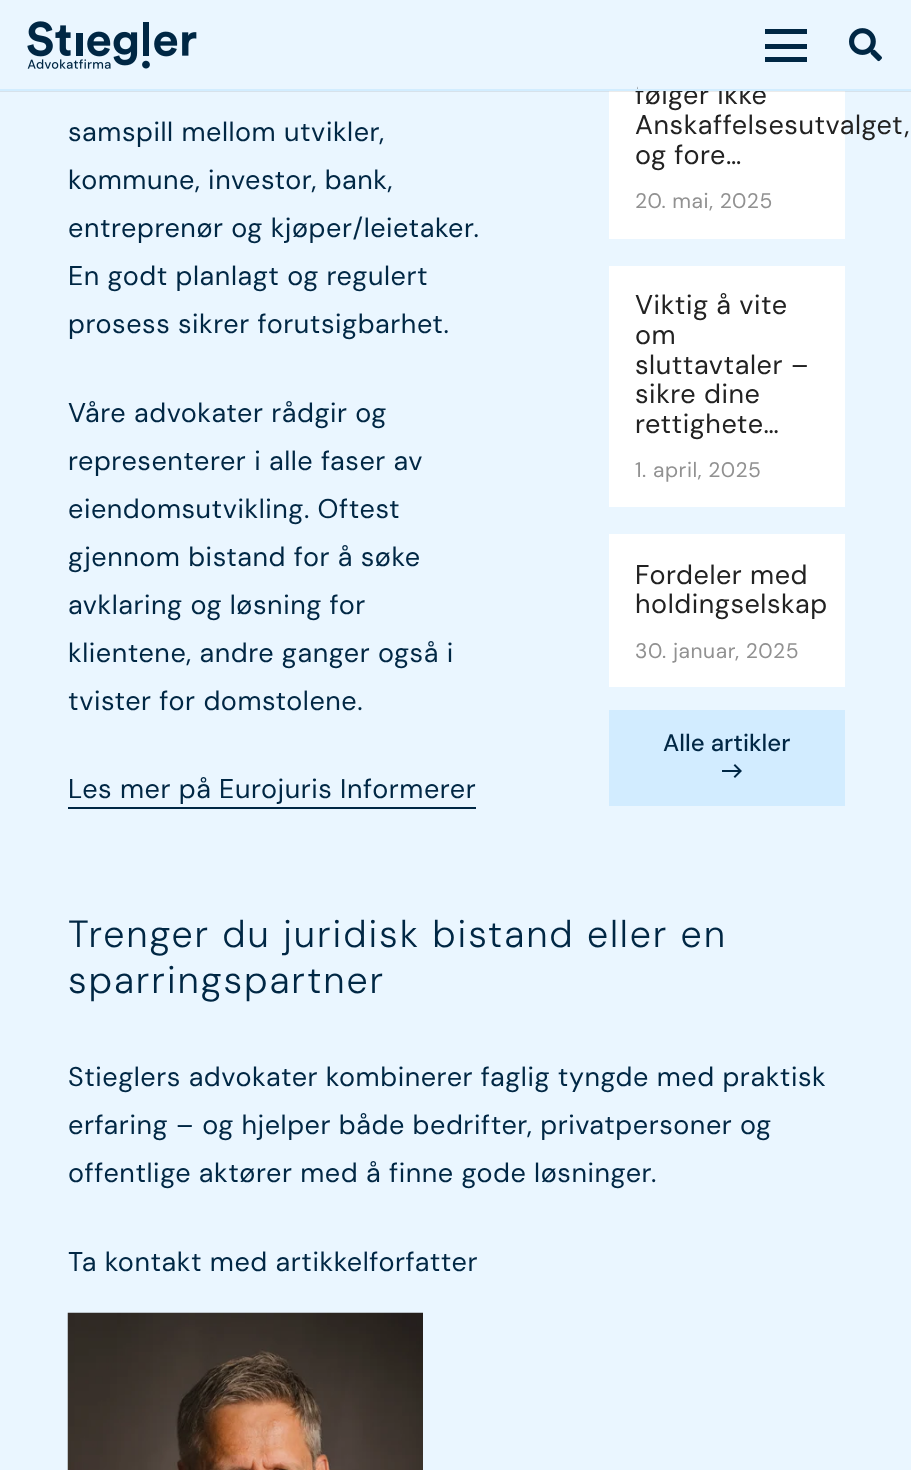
(async () => {
    const canvas = document.querySelector("canvas");
    canvas.width = 911;
    canvas.height = 1470;
    const context = canvas.getContext("2d");
    context.miterLimit = 4;
    context.fontKerning = "normal";
    function write(s, x, y, font, color) {
        context.font = font;
        context.fillStyle = color;
        context.fillText(s, x, y);
    }
    function block(x, y, w, h, color) {
        context.fillStyle = color;
        context.fillRect(x, y, w, h);
    }
    async function photo(src, x, y, w, h) {
        const img = new Image();
        img.src = src;
        await img.decode();
        context.drawImage(img, x, y, w, h);
    }

    block(0, 0, 911, 1470, "rgb(234, 246, 255)");
    block(609, 91, 236, 148, "rgb(255, 255, 255)");
    block(0, 91, 911, 1, "rgba(0, 0, 0, 0.08)");
    context.letterSpacing = "0.55px";
    write("følger ikke", 635, 104, "27px DM Sans", "rgb(34, 34, 34)");
    block(638, 84, 105, 5, "rgb(234, 246, 255)");
    block(0, 89, 911, 2, "rgb(210, 237, 255)");
    await photo("media/1.png", 27, 21, 170, 48);
    block(765, 44, 42, 5, "rgb(0, 39, 68)");
    block(765, 29, 42, 5, "rgb(0, 39, 68)");
    block(765, 57, 42, 5, "rgb(0, 39, 68)");
    await photo("media/2.png", 849, 28, 33, 34);
    write("samspill mellom utvikler,", 68, 141, "27px DM Sans", "rgb(0, 39, 68)");
    write("kommune, investor, bank,", 68, 189, "27px DM Sans", "rgb(0, 39, 68)");
    write("entreprenør og kjøper/leietaker.", 68, 237, "27px DM Sans", "rgb(0, 39, 68)");
    write("En godt planlagt og regulert", 68, 285, "27px DM Sans", "rgb(0, 39, 68)");
    write("prosess sikrer forutsigbarhet.", 68, 333, "27px DM Sans", "rgb(0, 39, 68)");
    write("Våre advokater rådgir og", 68, 422, "27px DM Sans", "rgb(0, 39, 68)");
    write("representerer i alle faser av", 68, 470, "27px DM Sans", "rgb(0, 39, 68)");
    write("eiendomsutvikling. Oftest", 68, 518, "27px DM Sans", "rgb(0, 39, 68)");
    write("gjennom bistand for å søke", 68, 566, "27px DM Sans", "rgb(0, 39, 68)");
    write("avklaring og løsning for", 68, 614, "27px DM Sans", "rgb(0, 39, 68)");
    write("klientene, andre ganger også i", 68, 662, "27px DM Sans", "rgb(0, 39, 68)");
    write("tvister for domstolene.", 68, 710, "27px DM Sans", "rgb(0, 39, 68)");
    write("Les mer på Eurojuris Informerer", 68, 798, "27px DM Sans", "rgb(0, 39, 68)");
    block(68, 807, 408, 2, "rgb(0, 39, 68)");
    write("Anskaffelsesutvalget,", 635, 134, "27px DM Sans", "rgb(34, 34, 34)");
    write("og fore…", 635, 164, "27px DM Sans", "rgb(34, 34, 34)");
    write("20. mai, 2025", 635, 208, "21px DM Sans", "rgb(145, 145, 145)");
    block(609, 266, 236, 241, "rgb(255, 255, 255)");
    write("Viktig å vite", 635, 314, "27px DM Sans", "rgb(34, 34, 34)");
    write("om", 635, 344, "27px DM Sans", "rgb(34, 34, 34)");
    write("sluttavtaler –", 635, 374, "27px DM Sans", "rgb(34, 34, 34)");
    write("sikre dine", 635, 403, "27px DM Sans", "rgb(34, 34, 34)");
    write("rettighete…", 635, 433, "27px DM Sans", "rgb(34, 34, 34)");
    write("1. april, 2025", 635, 477, "21px DM Sans", "rgb(145, 145, 145)");
    block(609, 534, 236, 153, "rgb(255, 255, 255)");
    write("Fordeler med", 635, 584, "27px DM Sans", "rgb(34, 34, 34)");
    write("holdingselskap", 635, 613, "27px DM Sans", "rgb(34, 34, 34)");
    write("30. januar, 2025", 635, 658, "21px DM Sans", "rgb(145, 145, 145)");
    block(609, 710, 236, 96, "rgb(210, 236, 255)");
    context.letterSpacing = "0px";
    write("Alle artikler", 663, 751, "500 24px DM Sans", "rgb(0, 39, 68)");
    await photo("media/3.png", 722, 764, 20, 14);
    context.letterSpacing = "1.9px";
    write("Trenger du juridisk bistand eller en", 68, 947, "300 37.75px DM Sans", "rgb(0, 39, 68)");
    write("sparringspartner", 68, 993, "300 37.75px DM Sans", "rgb(0, 39, 68)");
    context.letterSpacing = "0.55px";
    write("Stieglers advokater kombinerer faglig tyngde med praktisk", 68, 1086, "27px DM Sans", "rgb(0, 39, 68)");
    write("erfaring – og hjelper både bedrifter, privatpersoner og", 68, 1134, "27px DM Sans", "rgb(0, 39, 68)");
    write("offentlige aktører med å finne gode løsninger.", 68, 1182, "27px DM Sans", "rgb(0, 39, 68)");
    write("Ta kontakt med artikkelforfatter", 68, 1271, "27px DM Sans", "rgb(0, 39, 68)");
    await photo("media/4.png", 67, 1312, 356, 158);
})();
